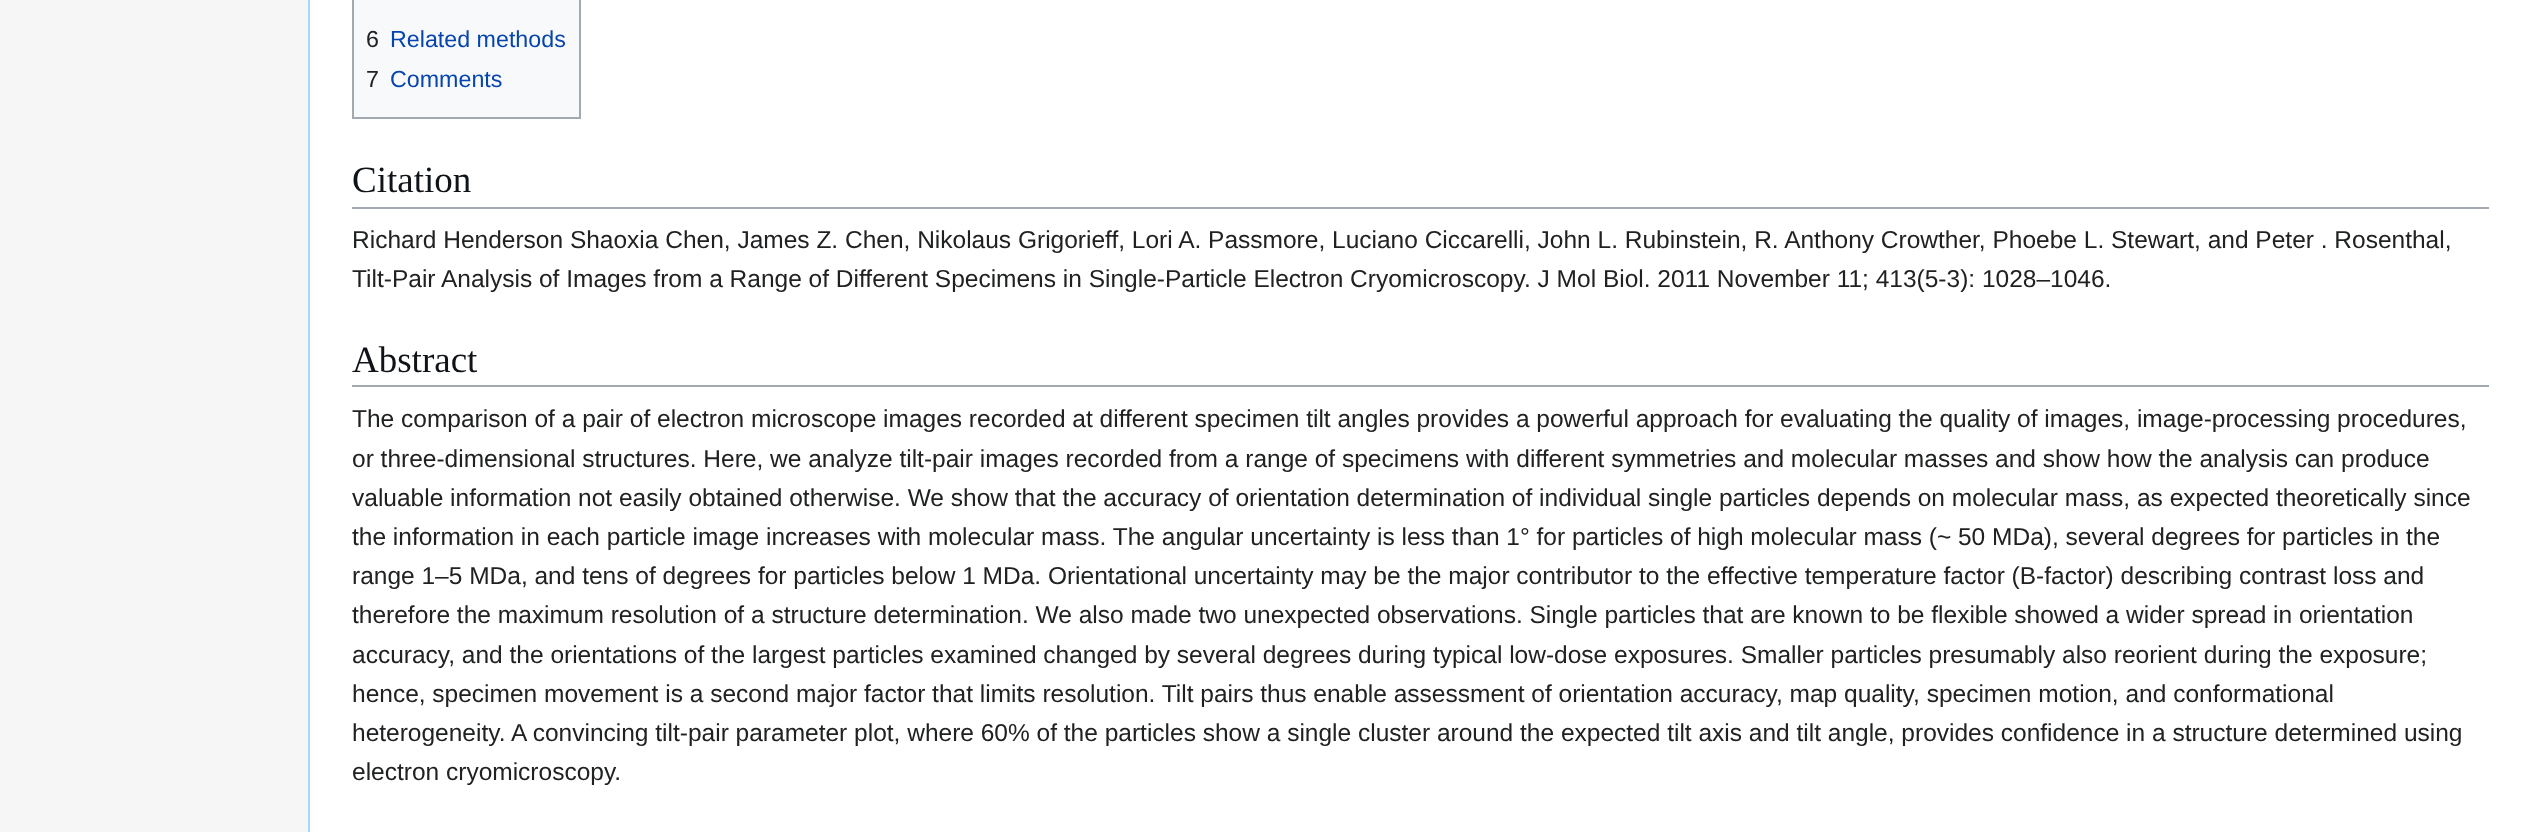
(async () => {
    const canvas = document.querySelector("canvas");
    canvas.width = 2530;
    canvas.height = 832;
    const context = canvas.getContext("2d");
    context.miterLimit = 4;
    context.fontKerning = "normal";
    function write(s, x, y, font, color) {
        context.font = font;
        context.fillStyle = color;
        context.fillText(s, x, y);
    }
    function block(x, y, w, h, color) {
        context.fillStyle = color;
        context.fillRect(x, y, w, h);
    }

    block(0, 0, 2530, 832, "rgb(246, 246, 246)");
    block(310, 0, 2220, 832, "rgb(255, 255, 255)");
    block(308, 0, 2, 832, "rgb(167, 215, 249)");
    context.fillStyle = "rgb(248, 249, 250)";
    context.beginPath();
    context.rect(353, -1, 227, 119);
    context.fill();
    context.strokeStyle = "rgb(162, 169, 177)";
    context.lineWidth = 2;
    context.stroke();
    write("6", 366, 47, "23.25px Liberation Sans", "rgb(32, 33, 34)");
    write("Related methods", 390, 47, "23.25px Liberation Sans", "rgb(6, 69, 173)");
    write("7", 366, 87, "23.25px Liberation Sans", "rgb(32, 33, 34)");
    write("Comments", 390, 87, "23.25px Liberation Sans", "rgb(6, 69, 173)");
    block(352, 207, 2137, 2, "rgb(162, 169, 177)");
    write("Citation", 352, 192, "37px Liberation Serif", "rgb(16, 20, 24)");
    write("Richard Henderson Shaoxia Chen, James Z. Chen, Nikolaus Grigorieff, Lori A. Passmore, Luciano Ciccarelli, John L. Rubinstein, R. Anthony Crowther, Phoebe L. Stewart, and Peter . Rosenthal,", 352, 248, "24.5px Liberation Sans", "rgb(32, 33, 34)");
    write("Tilt-Pair Analysis of Images from a Range of Different Specimens in Single-Particle Electron Cryomicroscopy. J Mol Biol. 2011 November 11; 413(5-3): 1028–1046.", 352, 287, "24.5px Liberation Sans", "rgb(32, 33, 34)");
    block(352, 385, 2137, 2, "rgb(162, 169, 177)");
    write("Abstract", 352, 372, "37px Liberation Serif", "rgb(16, 20, 24)");
    write("The comparison of a pair of electron microscope images recorded at different specimen tilt angles provides a powerful approach for evaluating the quality of images, image-processing procedures,", 352, 427, "24.5px Liberation Sans", "rgb(32, 33, 34)");
    write("or three-dimensional structures. Here, we analyze tilt-pair images recorded from a range of specimens with different symmetries and molecular masses and show how the analysis can produce", 352, 467, "24.5px Liberation Sans", "rgb(32, 33, 34)");
    write("valuable information not easily obtained otherwise. We show that the accuracy of orientation determination of individual single particles depends on molecular mass, as expected theoretically since", 352, 506, "24.5px Liberation Sans", "rgb(32, 33, 34)");
    write("the information in each particle image increases with molecular mass. The angular uncertainty is less than 1° for particles of high molecular mass (~ 50 MDa), several degrees for particles in the", 352, 545, "24.5px Liberation Sans", "rgb(32, 33, 34)");
    write("range 1–5 MDa, and tens of degrees for particles below 1 MDa. Orientational uncertainty may be the major contributor to the effective temperature factor (B-factor) describing contrast loss and", 352, 584, "24.5px Liberation Sans", "rgb(32, 33, 34)");
    write("therefore the maximum resolution of a structure determination. We also made two unexpected observations. Single particles that are known to be flexible showed a wider spread in orientation", 352, 623, "24.5px Liberation Sans", "rgb(32, 33, 34)");
    write("accuracy, and the orientations of the largest particles examined changed by several degrees during typical low-dose exposures. Smaller particles presumably also reorient during the exposure;", 352, 663, "24.5px Liberation Sans", "rgb(32, 33, 34)");
    write("hence, specimen movement is a second major factor that limits resolution. Tilt pairs thus enable assessment of orientation accuracy, map quality, specimen motion, and conformational", 352, 702, "24.5px Liberation Sans", "rgb(32, 33, 34)");
    write("heterogeneity. A convincing tilt-pair parameter plot, where 60% of the particles show a single cluster around the expected tilt axis and tilt angle, provides confidence in a structure determined using", 352, 741, "24.5px Liberation Sans", "rgb(32, 33, 34)");
    write("electron cryomicroscopy.", 352, 780, "24.5px Liberation Sans", "rgb(32, 33, 34)");
})();
